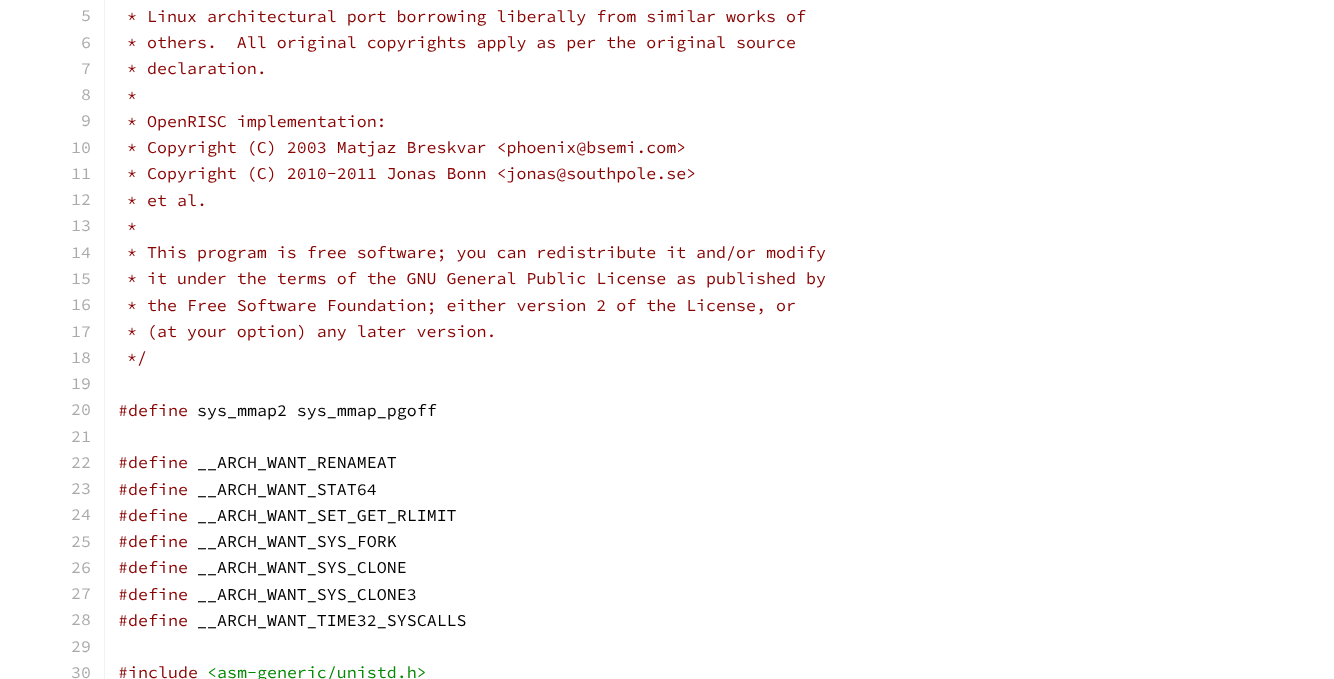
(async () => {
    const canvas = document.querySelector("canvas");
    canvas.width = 1334;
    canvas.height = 679;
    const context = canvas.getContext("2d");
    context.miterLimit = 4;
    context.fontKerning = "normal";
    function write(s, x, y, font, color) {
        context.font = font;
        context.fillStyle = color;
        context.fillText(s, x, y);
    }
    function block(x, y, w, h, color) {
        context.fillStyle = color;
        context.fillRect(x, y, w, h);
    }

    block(0, 0, 1334, 679, "rgb(255, 255, 255)");
    block(104, 0, 1, 679, "rgb(241, 242, 243)");
    write("5", 81, 21, "200 16.65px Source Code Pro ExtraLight", "rgb(170, 170, 170)");
    write("* Linux architectural port borrowing liberally from similar works of", 127, 22, "200 16.65px Source Code Pro ExtraLight", "rgb(136, 0, 0)");
    write("6", 81, 48, "200 16.65px Source Code Pro ExtraLight", "rgb(170, 170, 170)");
    write("* others.  All original copyrights apply as per the original source", 127, 48, "200 16.65px Source Code Pro ExtraLight", "rgb(136, 0, 0)");
    write("7", 81, 74, "200 16.65px Source Code Pro ExtraLight", "rgb(170, 170, 170)");
    write("* declaration.", 127, 74, "200 16.65px Source Code Pro ExtraLight", "rgb(136, 0, 0)");
    write("8", 81, 100, "200 16.65px Source Code Pro ExtraLight", "rgb(170, 170, 170)");
    write("*", 127, 101, "200 16.65px Source Code Pro ExtraLight", "rgb(136, 0, 0)");
    write("9", 81, 126, "200 16.65px Source Code Pro ExtraLight", "rgb(170, 170, 170)");
    write("* OpenRISC implementation:", 127, 127, "200 16.65px Source Code Pro ExtraLight", "rgb(136, 0, 0)");
    write("10", 71, 153, "200 16.65px Source Code Pro ExtraLight", "rgb(170, 170, 170)");
    write("* Copyright (C) 2003 Matjaz Breskvar <phoenix@bsemi.com>", 127, 153, "200 16.65px Source Code Pro ExtraLight", "rgb(136, 0, 0)");
    write("11", 71, 179, "200 16.65px Source Code Pro ExtraLight", "rgb(170, 170, 170)");
    write("* Copyright (C) 2010-2011 Jonas Bonn <jonas@southpole.se>", 127, 179, "200 16.65px Source Code Pro ExtraLight", "rgb(136, 0, 0)");
    write("12", 71, 205, "200 16.65px Source Code Pro ExtraLight", "rgb(170, 170, 170)");
    write("* et al.", 127, 206, "200 16.65px Source Code Pro ExtraLight", "rgb(136, 0, 0)");
    write("13", 71, 231, "200 16.65px Source Code Pro ExtraLight", "rgb(170, 170, 170)");
    write("*", 127, 232, "200 16.65px Source Code Pro ExtraLight", "rgb(136, 0, 0)");
    write("14", 71, 258, "200 16.65px Source Code Pro ExtraLight", "rgb(170, 170, 170)");
    write("* This program is free software; you can redistribute it and/or modify", 127, 258, "200 16.65px Source Code Pro ExtraLight", "rgb(136, 0, 0)");
    write("15", 71, 284, "200 16.65px Source Code Pro ExtraLight", "rgb(170, 170, 170)");
    write("* it under the terms of the GNU General Public License as published by", 127, 284, "200 16.65px Source Code Pro ExtraLight", "rgb(136, 0, 0)");
    write("16", 71, 310, "200 16.65px Source Code Pro ExtraLight", "rgb(170, 170, 170)");
    write("* the Free Software Foundation; either version 2 of the License, or", 127, 311, "200 16.65px Source Code Pro ExtraLight", "rgb(136, 0, 0)");
    write("17", 71, 337, "200 16.65px Source Code Pro ExtraLight", "rgb(170, 170, 170)");
    write("* (at your option) any later version.", 127, 337, "200 16.65px Source Code Pro ExtraLight", "rgb(136, 0, 0)");
    write("18", 71, 363, "200 16.65px Source Code Pro ExtraLight", "rgb(170, 170, 170)");
    write("*/", 127, 363, "200 16.65px Source Code Pro ExtraLight", "rgb(136, 0, 0)");
    write("19", 71, 389, "200 16.65px Source Code Pro ExtraLight", "rgb(170, 170, 170)");
    write("20", 71, 415, "200 16.65px Source Code Pro ExtraLight", "rgb(170, 170, 170)");
    write("#define", 118, 416, "200 16.65px Source Code Pro ExtraLight", "rgb(136, 0, 0)");
    write("sys_mmap2 sys_mmap_pgoff", 197, 416, "200 16.65px Source Code Pro ExtraLight", "rgb(0, 0, 0)");
    write("21", 71, 442, "200 16.65px Source Code Pro ExtraLight", "rgb(170, 170, 170)");
    write("22", 71, 468, "200 16.65px Source Code Pro ExtraLight", "rgb(170, 170, 170)");
    write("#define", 118, 468, "200 16.65px Source Code Pro ExtraLight", "rgb(136, 0, 0)");
    write("__ARCH_WANT_RENAMEAT", 197, 468, "200 16.65px Source Code Pro ExtraLight", "rgb(0, 0, 0)");
    write("23", 71, 494, "200 16.65px Source Code Pro ExtraLight", "rgb(170, 170, 170)");
    write("#define", 118, 495, "200 16.65px Source Code Pro ExtraLight", "rgb(136, 0, 0)");
    write("__ARCH_WANT_STAT64", 197, 495, "200 16.65px Source Code Pro ExtraLight", "rgb(0, 0, 0)");
    write("24", 71, 520, "200 16.65px Source Code Pro ExtraLight", "rgb(170, 170, 170)");
    write("#define", 118, 521, "200 16.65px Source Code Pro ExtraLight", "rgb(136, 0, 0)");
    write("__ARCH_WANT_SET_GET_RLIMIT", 197, 521, "200 16.65px Source Code Pro ExtraLight", "rgb(0, 0, 0)");
    write("25", 71, 547, "200 16.65px Source Code Pro ExtraLight", "rgb(170, 170, 170)");
    write("#define", 118, 547, "200 16.65px Source Code Pro ExtraLight", "rgb(136, 0, 0)");
    write("__ARCH_WANT_SYS_FORK", 197, 547, "200 16.65px Source Code Pro ExtraLight", "rgb(0, 0, 0)");
    write("26", 71, 573, "200 16.65px Source Code Pro ExtraLight", "rgb(170, 170, 170)");
    write("#define", 118, 573, "200 16.65px Source Code Pro ExtraLight", "rgb(136, 0, 0)");
    write("__ARCH_WANT_SYS_CLONE", 197, 573, "200 16.65px Source Code Pro ExtraLight", "rgb(0, 0, 0)");
    write("27", 71, 599, "200 16.65px Source Code Pro ExtraLight", "rgb(170, 170, 170)");
    write("#define", 118, 600, "200 16.65px Source Code Pro ExtraLight", "rgb(136, 0, 0)");
    write("__ARCH_WANT_SYS_CLONE3", 197, 600, "200 16.65px Source Code Pro ExtraLight", "rgb(0, 0, 0)");
    write("28", 71, 625, "200 16.65px Source Code Pro ExtraLight", "rgb(170, 170, 170)");
    write("#define", 118, 626, "200 16.65px Source Code Pro ExtraLight", "rgb(136, 0, 0)");
    write("__ARCH_WANT_TIME32_SYSCALLS", 197, 626, "200 16.65px Source Code Pro ExtraLight", "rgb(0, 0, 0)");
    write("29", 71, 652, "200 16.65px Source Code Pro ExtraLight", "rgb(170, 170, 170)");
    write("30", 71, 678, "200 16.65px Source Code Pro ExtraLight", "rgb(170, 170, 170)");
    write("#include", 118, 678, "200 16.65px Source Code Pro ExtraLight", "rgb(136, 0, 0)");
    write("<asm-generic/unistd.h>", 207, 678, "200 16.65px Source Code Pro ExtraLight", "rgb(0, 136, 0)");
})();
